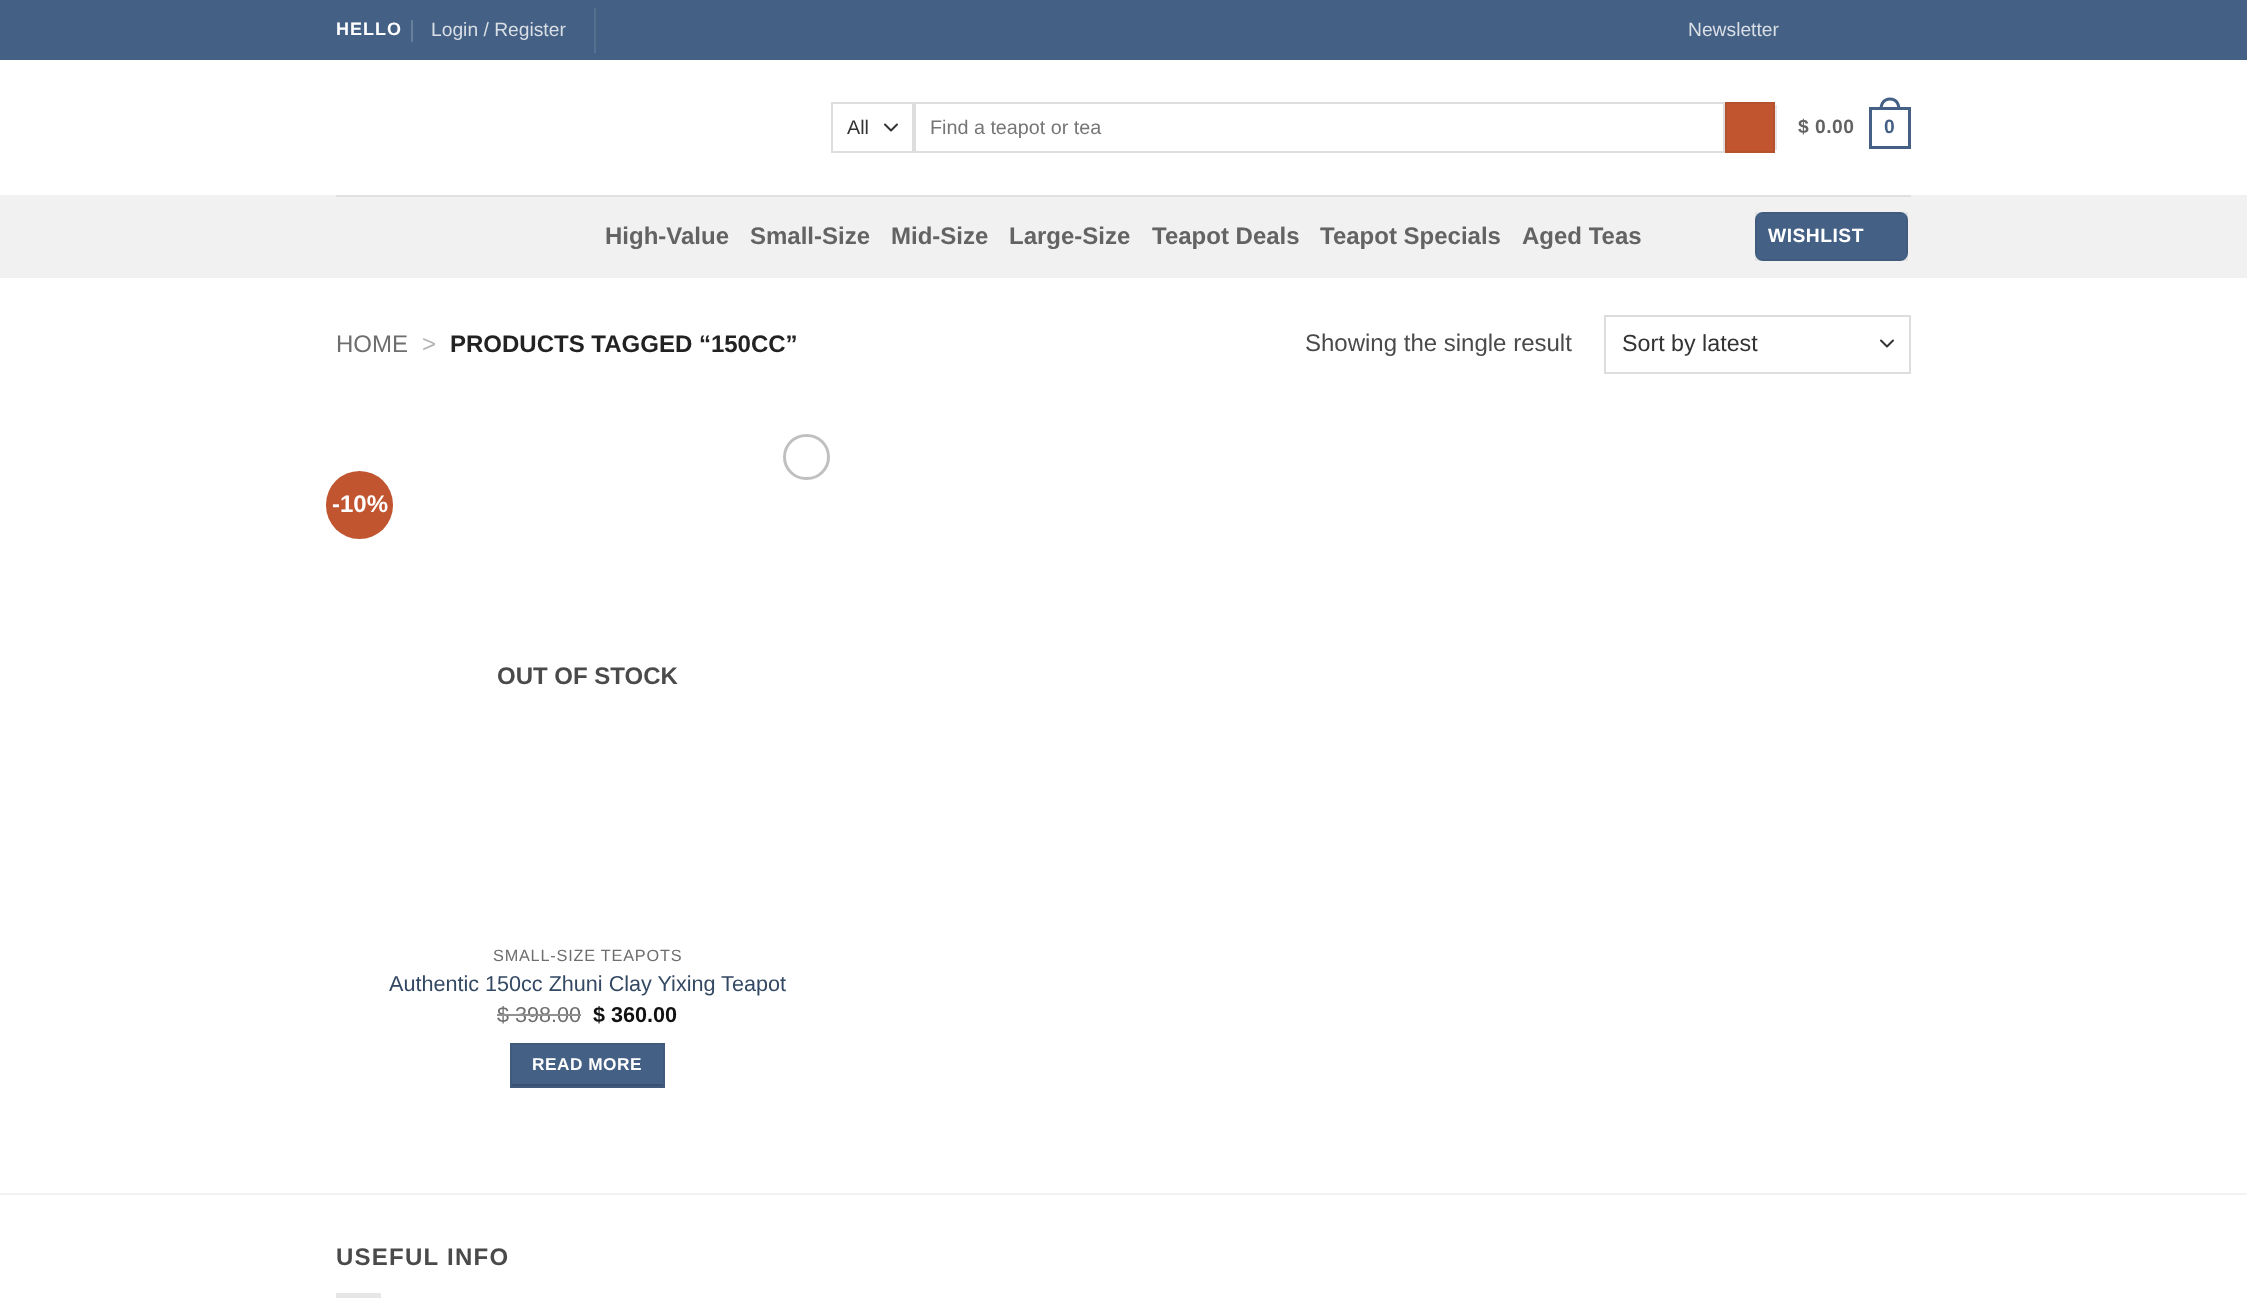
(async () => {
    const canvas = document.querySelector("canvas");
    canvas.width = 2247;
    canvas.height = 1310;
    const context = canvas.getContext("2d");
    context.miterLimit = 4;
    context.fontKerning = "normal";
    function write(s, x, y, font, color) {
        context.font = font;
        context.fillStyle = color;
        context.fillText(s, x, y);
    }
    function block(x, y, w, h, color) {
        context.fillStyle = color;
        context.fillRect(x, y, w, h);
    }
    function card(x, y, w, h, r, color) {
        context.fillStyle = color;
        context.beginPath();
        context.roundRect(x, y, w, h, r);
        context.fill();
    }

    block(0, 0, 2247, 1310, "rgb(255, 255, 255)");
    block(0, 0, 2247, 60, "rgb(68, 96, 132)");
    context.letterSpacing = "1px";
    write("HELLO", 336, 35, "bold 18px Liberation Sans", "rgb(255, 255, 255)");
    block(411, 20, 2, 22, "rgb(105, 128, 157)");
    context.letterSpacing = "0px";
    write("Login / Register", 431, 36, "19.25px Liberation Sans", "rgb(218, 223, 230)");
    block(594, 8, 2, 45, "rgb(87, 112, 144)");
    write("Newsletter", 1688, 36, "19.25px Liberation Sans", "rgb(218, 223, 230)");
    context.beginPath();
    context.moveTo(885, 124.5);
    context.lineTo(891, 130.5);
    context.lineTo(897, 124.5);
    context.strokeStyle = "rgb(51, 51, 51)";
    context.lineWidth = 2;
    context.lineCap = "round";
    context.lineJoin = "round";
    context.stroke();
    context.strokeStyle = "rgb(221, 221, 221)";
    context.lineJoin = "miter";
    context.strokeRect(832, 103, 81, 49);
    write("All", 847, 134, "19.75px Liberation Sans", "rgb(51, 51, 51)");
    context.strokeRect(915, 103, 809, 49);
    write("Find a teapot or tea", 930, 134, "19.75px Liberation Sans", "rgb(117, 117, 117)");
    context.fillStyle = "rgb(192, 85, 48)";
    context.beginPath();
    context.rect(1726, 103, 48, 49);
    context.fill();
    context.strokeStyle = "rgb(182, 81, 46)";
    context.stroke();
    block(1775, 105, 2, 45, "rgb(230, 230, 230)");
    context.letterSpacing = "0.5px";
    write("$ 0.00", 1798, 133, "bold 19.25px Liberation Sans", "rgb(99, 99, 99)");
    context.strokeStyle = "rgb(68, 96, 132)";
    context.lineWidth = 3;
    context.strokeRect(1870.5, 108.5, 39, 39);
    context.fillStyle = "rgb(68, 96, 132)";
    context.beginPath();
    context.moveTo(1890, 97.5);
    context.bezierCurveTo(1897, 97.5, 1900.5, 103, 1900.5, 109.5);
    context.lineTo(1879.5, 109.5);
    context.bezierCurveTo(1879.5, 103, 1883, 97.5, 1890, 97.5);
    context.closePath();
    context.moveTo(1890, 100.5);
    context.bezierCurveTo(1895.5, 100.5, 1897.5, 105, 1897.5, 109.5);
    context.lineTo(1882.5, 109.5);
    context.bezierCurveTo(1882.5, 105, 1884.5, 100.5, 1890, 100.5);
    context.closePath();
    context.fill("evenodd");
    write("0", 1884, 133, "bold 19.25px Liberation Sans", "rgb(68, 96, 132)");
    block(0, 195, 2247, 83, "rgb(241, 241, 241)");
    block(336, 195, 1575, 2, "rgb(224, 224, 224)");
    context.letterSpacing = "0px";
    write("High-Value", 605, 244, "bold 24px Liberation Sans", "rgb(99, 99, 99)");
    write("Small-Size", 750, 244, "bold 24px Liberation Sans", "rgb(99, 99, 99)");
    write("Mid-Size", 891, 244, "bold 24px Liberation Sans", "rgb(99, 99, 99)");
    write("Large-Size", 1009, 244, "bold 24px Liberation Sans", "rgb(99, 99, 99)");
    write("Teapot Deals", 1152, 244, "bold 24px Liberation Sans", "rgb(99, 99, 99)");
    write("Teapot Specials", 1320, 244, "bold 24px Liberation Sans", "rgb(99, 99, 99)");
    write("Aged Teas", 1522, 244, "bold 24px Liberation Sans", "rgb(99, 99, 99)");
    card(1755, 212, 153, 49, 8, "rgb(68, 96, 132)");
    context.strokeStyle = "rgba(0, 0, 0, 0.05)";
    context.lineWidth = 2;
    context.strokeRect(1756, 213, 151, 47);
    context.letterSpacing = "0.5px";
    write("WISHLIST", 1768, 242, "bold 19.25px Liberation Sans", "rgb(255, 255, 255)");
    context.letterSpacing = "0px";
    write("HOME", 336, 352, "24px Liberation Sans", "rgb(110, 110, 110)");
    write(">", 422, 352, "24px Liberation Sans", "rgb(178, 178, 178)");
    write("PRODUCTS TAGGED “150CC”", 450, 352, "bold 24px Liberation Sans", "rgb(34, 34, 34)");
    write("Showing the single result", 1305, 351, "24px Liberation Sans", "rgb(74, 74, 74)");
    context.beginPath();
    context.moveTo(1881, 340.5);
    context.lineTo(1887, 346.5);
    context.lineTo(1893, 340.5);
    context.strokeStyle = "rgb(51, 51, 51)";
    context.lineJoin = "round";
    context.stroke();
    context.strokeStyle = "rgb(221, 221, 221)";
    context.lineJoin = "miter";
    context.strokeRect(1605, 316, 305, 57);
    write("Sort by latest", 1622, 351, "23.25px Liberation Sans", "rgb(51, 51, 51)");
    card(326, 471, 67, 68, 33.5, "rgb(192, 85, 48)");
    write("-10%", 332, 512, "bold 24px Liberation Sans", "rgb(255, 255, 255)");
    context.beginPath();
    context.roundRect(784.5, 435.5, 44, 43, 21.5);
    context.strokeStyle = "rgb(192, 192, 192)";
    context.lineWidth = 3;
    context.stroke();
    write("OUT OF STOCK", 497, 684, "bold 24px Liberation Sans", "rgb(74, 74, 74)");
    context.letterSpacing = "0.8px";
    write("SMALL-SIZE TEAPOTS", 493, 961, "16.25px Liberation Sans", "rgb(110, 110, 110)");
    context.letterSpacing = "0px";
    write("Authentic 150cc Zhuni Clay Yixing Teapot", 389, 991, "21.6px Liberation Sans", "rgb(51, 72, 98)");
    write("$ 398.00", 497, 1022, "21.6px Liberation Sans", "rgb(110, 110, 110)");
    block(497, 1014, 84, 2, "rgb(146, 146, 146)");
    write("$ 360.00", 593, 1022, "bold 21.6px Liberation Sans", "rgb(17, 17, 17)");
    block(512, 1045, 151, 39, "rgb(68, 96, 132)");
    context.strokeStyle = "rgb(65, 91, 125)";
    context.lineWidth = 2;
    context.strokeRect(511, 1044, 153, 43);
    context.letterSpacing = "0.5px";
    write("READ MORE", 532, 1070, "bold 17.25px Liberation Sans", "rgb(255, 255, 255)");
    context.save();
    context.beginPath();
    context.rect(512, 1044, 151, 42);
    context.clip();
    context.fillStyle = "rgb(58, 82, 112)";
    context.beginPath();
    context.moveTo(363, 896);
    context.lineTo(812, 896);
    context.lineTo(812, 1234);
    context.lineTo(363, 1234);
    context.closePath();
    context.moveTo(511, 1042);
    context.lineTo(663, 1042);
    context.lineTo(663, 1084);
    context.lineTo(511, 1084);
    context.closePath();
    context.fill("evenodd");
    context.restore();
    block(0, 1193, 2247, 2, "rgb(242, 242, 242)");
    context.letterSpacing = "1.25px";
    write("USEFUL INFO", 336, 1265, "bold 24px Liberation Sans", "rgb(74, 74, 74)");
    block(336, 1293, 45, 5, "rgb(230, 230, 230)");
})();
